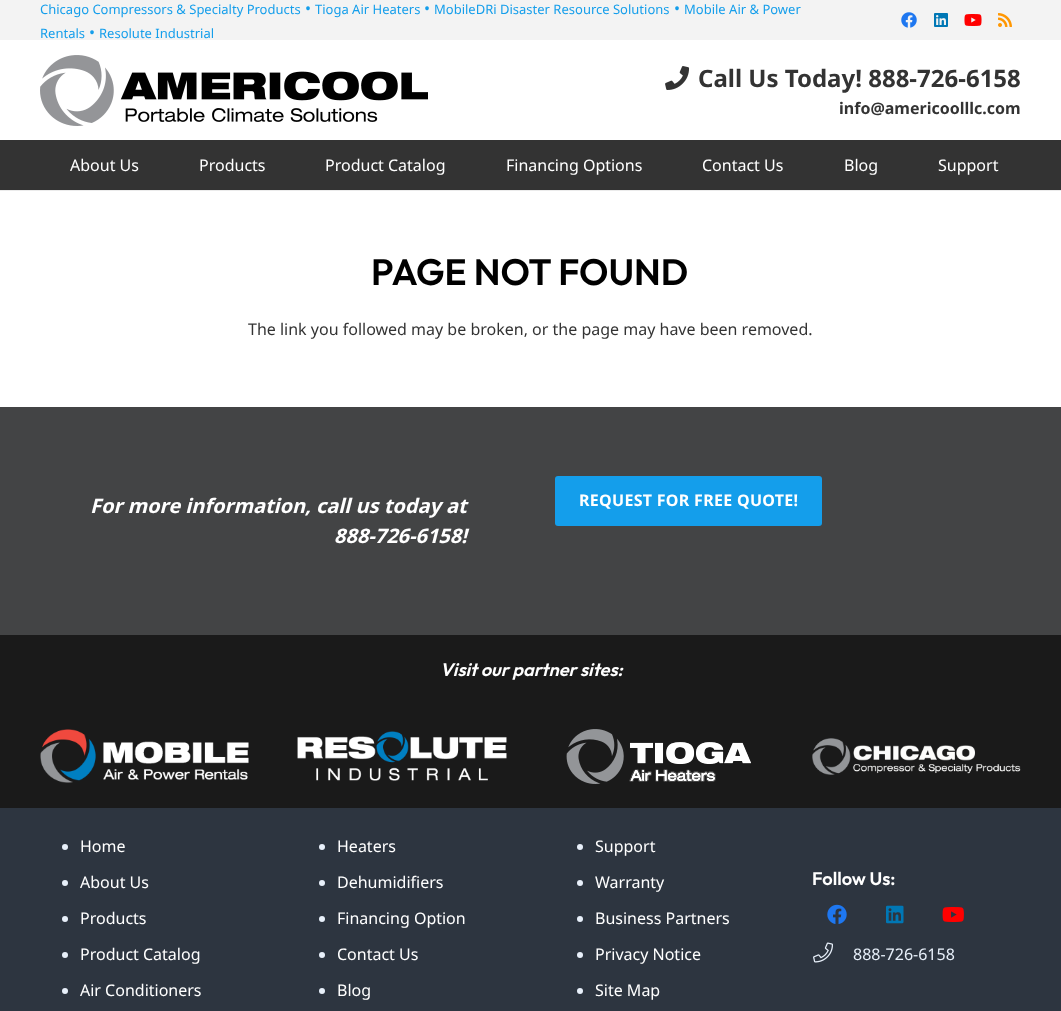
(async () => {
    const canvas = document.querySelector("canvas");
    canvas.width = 1061;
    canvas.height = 1011;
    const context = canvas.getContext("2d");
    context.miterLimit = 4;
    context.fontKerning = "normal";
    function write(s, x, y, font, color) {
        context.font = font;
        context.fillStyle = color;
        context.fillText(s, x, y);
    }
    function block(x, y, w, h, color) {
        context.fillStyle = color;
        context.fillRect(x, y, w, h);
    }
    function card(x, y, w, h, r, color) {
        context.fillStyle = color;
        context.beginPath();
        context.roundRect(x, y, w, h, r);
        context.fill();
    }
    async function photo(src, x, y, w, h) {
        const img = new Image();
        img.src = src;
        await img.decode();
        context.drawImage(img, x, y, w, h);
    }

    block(0, 0, 1061, 1011, "rgb(255, 255, 255)");
    block(0, 0, 1061, 40, "rgb(243, 243, 243)");
    write("Chicago Compressors & Specialty Products", 40, 14, "13px Noto Sans", "rgb(20, 158, 235)");
    write("•", 305, 14, "16px Noto Sans", "rgb(20, 158, 235)");
    write("Tioga Air Heaters", 315, 14, "13px Noto Sans", "rgb(20, 158, 235)");
    write("•", 424, 14, "16px Noto Sans", "rgb(20, 158, 235)");
    write("MobileDRi Disaster Resource Solutions", 434, 14, "13px Noto Sans", "rgb(20, 158, 235)");
    write("•", 674, 14, "16px Noto Sans", "rgb(20, 158, 235)");
    write("Mobile Air & Power", 684, 14, "13px Noto Sans", "rgb(20, 158, 235)");
    write("Rentals", 40, 38, "13px Noto Sans", "rgb(20, 158, 235)");
    write("•", 89, 38, "16px Noto Sans", "rgb(20, 158, 235)");
    write("Resolute Industrial", 99, 38, "13px Noto Sans", "rgb(20, 158, 235)");
    await photo("media/1.png", 901, 12, 16, 16);
    await photo("media/2.png", 934, 13, 14, 14);
    await photo("media/3.png", 964, 14, 18, 12);
    await photo("media/4.png", 998, 13, 14, 14);
    await photo("media/5.png", 40, 55, 388, 71);
    await photo("media/6.png", 665, 66, 25, 24);
    write("Call Us Today! 888-726-6158", 698, 87, "bold 24px Noto Sans", "rgb(51, 51, 51)");
    write("info@americoolllc.com", 839, 114, "bold 16px Noto Sans", "rgb(51, 51, 51)");
    block(0, 190, 1061, 1, "rgb(235, 235, 235)");
    block(0, 140, 1061, 50, "rgb(51, 51, 51)");
    write("About Us", 70, 171, "16px Noto Sans", "rgb(255, 255, 255)");
    write("Products", 199, 171, "16px Noto Sans", "rgb(255, 255, 255)");
    write("Product Catalog", 325, 171, "16px Noto Sans", "rgb(255, 255, 255)");
    write("Financing Options", 506, 171, "16px Noto Sans", "rgb(255, 255, 255)");
    write("Contact Us", 702, 171, "16px Noto Sans", "rgb(255, 255, 255)");
    write("Blog", 844, 171, "16px Noto Sans", "rgb(255, 255, 255)");
    write("Support", 938, 171, "16px Noto Sans", "rgb(255, 255, 255)");
    write("PAGE NOT FOUND", 371, 285, "100 36.75px Outfit", "rgb(0, 0, 0)");
    write("The link you followed may be broken, or the page may have been removed.", 248, 335, "16px Noto Sans", "rgb(51, 51, 51)");
    block(0, 407, 1061, 228, "rgb(67, 68, 69)");
    write("For more information, call us today at", 90, 513, "italic bold 20px Noto Sans", "rgb(255, 255, 255)");
    write("888-726-6158!", 334, 543, "italic bold 20px Noto Sans", "rgb(255, 255, 255)");
    card(555, 476, 267, 50, 3, "rgb(20, 158, 235)");
    context.letterSpacing = "0.3px";
    write("REQUEST FOR FREE QUOTE!", 579, 506, "bold 16px Noto Sans", "rgb(255, 255, 255)");
    block(0, 635, 1061, 173, "rgb(26, 26, 26)");
    context.letterSpacing = "0px";
    write("Visit our partner sites:", 440, 676, "italic 100 18.25px Outfit", "rgb(255, 255, 255)");
    await photo("media/7.png", 40, 729, 209, 54);
    await photo("media/8.png", 297, 731, 210, 50);
    await photo("media/9.png", 566, 729, 185, 55);
    await photo("media/10.png", 812, 738, 209, 37);
    block(0, 808, 1061, 203, "rgb(45, 53, 64)");
    context.fillStyle = "rgb(232, 240, 250)";
    context.beginPath();
    context.arc(65, 847, 3, 0, Math.PI * 2);
    context.fill();
    write("Home", 80, 852, "16px Noto Sans", "rgb(255, 255, 255)");
    context.fillStyle = "rgb(232, 240, 250)";
    context.beginPath();
    context.arc(65, 883, 3, 0, Math.PI * 2);
    context.fill();
    write("About Us", 80, 888, "16px Noto Sans", "rgb(255, 255, 255)");
    context.fillStyle = "rgb(232, 240, 250)";
    context.beginPath();
    context.arc(65, 919, 3, 0, Math.PI * 2);
    context.fill();
    write("Products", 80, 924, "16px Noto Sans", "rgb(255, 255, 255)");
    context.fillStyle = "rgb(232, 240, 250)";
    context.beginPath();
    context.arc(65, 955, 3, 0, Math.PI * 2);
    context.fill();
    write("Product Catalog", 80, 960, "16px Noto Sans", "rgb(255, 255, 255)");
    context.fillStyle = "rgb(232, 240, 250)";
    context.beginPath();
    context.arc(65, 991, 3, 0, Math.PI * 2);
    context.fill();
    write("Air Conditioners", 80, 996, "16px Noto Sans", "rgb(255, 255, 255)");
    context.fillStyle = "rgb(232, 240, 250)";
    context.beginPath();
    context.arc(322, 847, 3, 0, Math.PI * 2);
    context.fill();
    write("Heaters", 337, 852, "16px Noto Sans", "rgb(255, 255, 255)");
    context.fillStyle = "rgb(232, 240, 250)";
    context.beginPath();
    context.arc(322, 883, 3, 0, Math.PI * 2);
    context.fill();
    write("Dehumidifiers", 337, 888, "16px Noto Sans", "rgb(255, 255, 255)");
    context.fillStyle = "rgb(232, 240, 250)";
    context.beginPath();
    context.arc(322, 919, 3, 0, Math.PI * 2);
    context.fill();
    write("Financing Option", 337, 924, "16px Noto Sans", "rgb(255, 255, 255)");
    context.fillStyle = "rgb(232, 240, 250)";
    context.beginPath();
    context.arc(322, 955, 3, 0, Math.PI * 2);
    context.fill();
    write("Contact Us", 337, 960, "16px Noto Sans", "rgb(255, 255, 255)");
    context.fillStyle = "rgb(232, 240, 250)";
    context.beginPath();
    context.arc(322, 991, 3, 0, Math.PI * 2);
    context.fill();
    write("Blog", 337, 996, "16px Noto Sans", "rgb(255, 255, 255)");
    context.fillStyle = "rgb(232, 240, 250)";
    context.beginPath();
    context.arc(580, 847, 3, 0, Math.PI * 2);
    context.fill();
    write("Support", 595, 852, "16px Noto Sans", "rgb(255, 255, 255)");
    context.fillStyle = "rgb(232, 240, 250)";
    context.beginPath();
    context.arc(580, 883, 3, 0, Math.PI * 2);
    context.fill();
    write("Warranty", 595, 888, "16px Noto Sans", "rgb(255, 255, 255)");
    context.fillStyle = "rgb(232, 240, 250)";
    context.beginPath();
    context.arc(580, 919, 3, 0, Math.PI * 2);
    context.fill();
    write("Business Partners", 595, 924, "16px Noto Sans", "rgb(255, 255, 255)");
    context.fillStyle = "rgb(232, 240, 250)";
    context.beginPath();
    context.arc(580, 955, 3, 0, Math.PI * 2);
    context.fill();
    write("Privacy Notice", 595, 960, "16px Noto Sans", "rgb(255, 255, 255)");
    context.fillStyle = "rgb(232, 240, 250)";
    context.beginPath();
    context.arc(580, 991, 3, 0, Math.PI * 2);
    context.fill();
    write("Site Map", 595, 996, "16px Noto Sans", "rgb(255, 255, 255)");
    write("Follow Us:", 812, 885, "100 18.25px Outfit", "rgb(255, 255, 255)");
    await photo("media/11.png", 827, 904, 20, 20);
    await photo("media/12.png", 886, 905, 18, 19);
    await photo("media/13.png", 942, 907, 22, 15);
    await photo("media/14.png", 813, 942, 20, 21);
    write("888-726-6158", 853, 960, "16px Noto Sans", "rgb(232, 240, 250)");
})();
